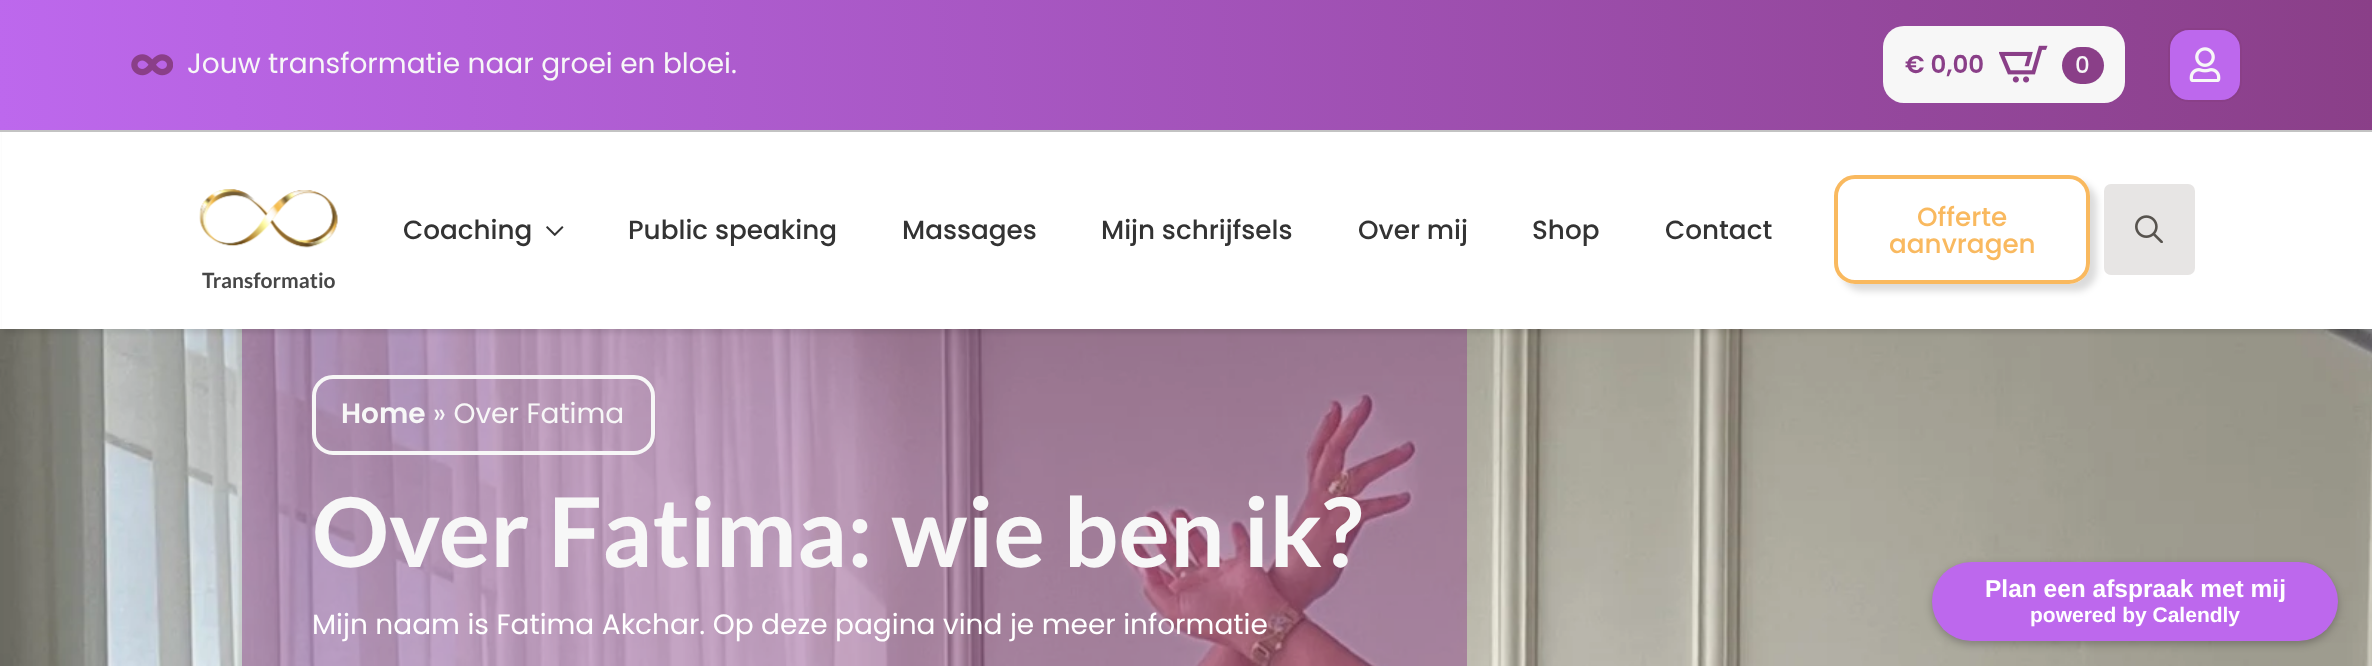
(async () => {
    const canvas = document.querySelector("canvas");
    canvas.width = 2372;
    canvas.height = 666;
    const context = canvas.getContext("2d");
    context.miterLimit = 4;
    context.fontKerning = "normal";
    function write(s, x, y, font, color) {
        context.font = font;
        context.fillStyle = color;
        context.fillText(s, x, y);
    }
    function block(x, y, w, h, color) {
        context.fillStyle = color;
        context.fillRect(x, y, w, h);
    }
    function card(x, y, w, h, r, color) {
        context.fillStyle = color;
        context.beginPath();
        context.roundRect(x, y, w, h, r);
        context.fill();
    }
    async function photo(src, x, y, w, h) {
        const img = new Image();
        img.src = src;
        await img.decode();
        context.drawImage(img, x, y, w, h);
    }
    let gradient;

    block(0, 0, 2372, 666, "rgb(255, 255, 255)");
    await photo("media/7.png", 0, 329, 2372, 337);
    block(242, 329, 1225, 337, "rgba(138, 63, 136, 0.45)");
    context.fillStyle = "rgba(0, 0, 0, 0.09)";
    context.filter = "blur(2px)";
    context.beginPath();
    context.rect(4, 4, 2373, 329);
    context.fill();
    context.filter = "none";
    block(2, 132, 2370, 197, "rgb(255, 255, 255)");
    gradient = context.createLinearGradient(-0.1, 127, 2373, 2.6);
    gradient.addColorStop(0, "rgb(189, 104, 237)");
    gradient.addColorStop(1, "rgb(138, 63, 136)");
    context.fillStyle = gradient;
    context.fillRect(0, 0, 2372, 130);
    block(0, 130, 2372, 2, "rgb(195, 195, 195)");
    await photo("media/1.png", 131, 54, 42, 22);
    write("Jouw transformatie naar groei en bloei.", 187, 73, "28px Poppins", "rgb(247, 247, 247)");
    card(1883, 26, 242, 77, 21, "rgb(247, 247, 247)");
    write("€ 0,00", 1905, 73, "600 24.5px Poppins", "rgb(138, 63, 136)");
    await photo("media/2.png", 1999, 45, 49, 38);
    card(2062, 47, 42, 37, 18.5, "rgb(138, 63, 136)");
    write("0", 2075, 73, "500 23px Poppins", "rgb(247, 247, 247)");
    context.fillStyle = "rgb(189, 104, 237)";
    context.beginPath();
    context.roundRect(2169, 29, 72, 72, 20);
    context.fill();
    context.strokeStyle = "rgb(138, 63, 136)";
    context.lineWidth = 2;
    context.stroke();
    await photo("media/3.png", 2189, 47, 32, 35);
    write("Coaching", 403, 239, "500 26.25px Poppins", "rgb(51, 51, 51)");
    await photo("media/4.png", 546, 226, 18, 10);
    write("Public speaking", 628, 239, "500 26.25px Poppins", "rgb(51, 51, 51)");
    write("Massages", 902, 239, "500 26.25px Poppins", "rgb(51, 51, 51)");
    write("Mijn schrijfsels", 1101, 239, "500 26.25px Poppins", "rgb(51, 51, 51)");
    write("Over mij", 1358, 239, "500 26.25px Poppins", "rgb(51, 51, 51)");
    write("Shop", 1532, 239, "500 26.25px Poppins", "rgb(51, 51, 51)");
    write("Contact", 1665, 239, "500 26.25px Poppins", "rgb(51, 51, 51)");
    context.save();
    context.beginPath();
    context.moveTo(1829, 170);
    context.lineTo(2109, 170);
    context.lineTo(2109, 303);
    context.lineTo(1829, 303);
    context.closePath();
    context.moveTo(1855, 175);
    context.lineTo(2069, 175);
    context.bezierCurveTo(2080.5, 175, 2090, 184.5, 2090, 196);
    context.lineTo(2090, 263);
    context.bezierCurveTo(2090, 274.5, 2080.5, 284, 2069, 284);
    context.lineTo(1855, 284);
    context.bezierCurveTo(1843.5, 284, 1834, 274.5, 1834, 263);
    context.lineTo(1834, 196);
    context.bezierCurveTo(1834, 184.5, 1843.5, 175, 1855, 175);
    context.closePath();
    context.clip("evenodd");
    context.fillStyle = "rgba(0, 0, 0, 0.14)";
    context.filter = "blur(3.5px)";
    context.beginPath();
    context.roundRect(1841, 182, 256, 109, 21);
    context.fill();
    context.filter = "none";
    context.restore();
    context.beginPath();
    context.roundRect(1836, 177, 252, 105, 19);
    context.strokeStyle = "rgb(249, 185, 95)";
    context.lineWidth = 4;
    context.stroke();
    write("Offerte", 1917, 226, "500 26.25px Poppins", "rgb(249, 185, 95)");
    write("aanvragen", 1889, 253, "500 26.25px Poppins", "rgb(249, 185, 95)");
    card(2104, 184, 91, 91, 7, "rgb(231, 229, 228)");
    await photo("media/5.png", 2135, 215, 28, 28);
    await photo("media/6.png", 199, 189, 139, 59);
    write("Transformatio", 202, 288, "bold 21px Lato", "rgb(71, 71, 71)");
    context.beginPath();
    context.roundRect(314, 377, 339, 76, 19);
    context.strokeStyle = "rgb(247, 247, 247)";
    context.stroke();
    write("Home", 341, 423, "600 28px Poppins", "rgb(247, 247, 247)");
    write("» Over Fatima", 433, 423, "28px Poppins", "rgb(247, 247, 247)");
    write("Over Fatima: wie ben ik?", 312, 567, "bold 96.25px Lato", "rgb(247, 247, 247)");
    write("Mijn naam is Fatima Akchar. Op deze pagina vind je meer informatie", 312, 634, "28px Poppins", "rgb(255, 255, 255)");
    context.fillStyle = "rgba(0, 0, 0, 0.25)";
    context.filter = "blur(4.5px)";
    context.beginPath();
    context.roundRect(1932, 565, 406, 79, 39.5);
    context.fill();
    context.filter = "none";
    card(1932, 562, 406, 79, 39.5, "rgb(189, 104, 237)");
    write("Plan een afspraak met mij", 1985, 597, "bold 24.5px Liberation Sans", "rgb(255, 255, 255)");
    write("powered by Calendly", 2030, 622, "bold 21px Liberation Sans", "rgb(255, 255, 255)");
})();
